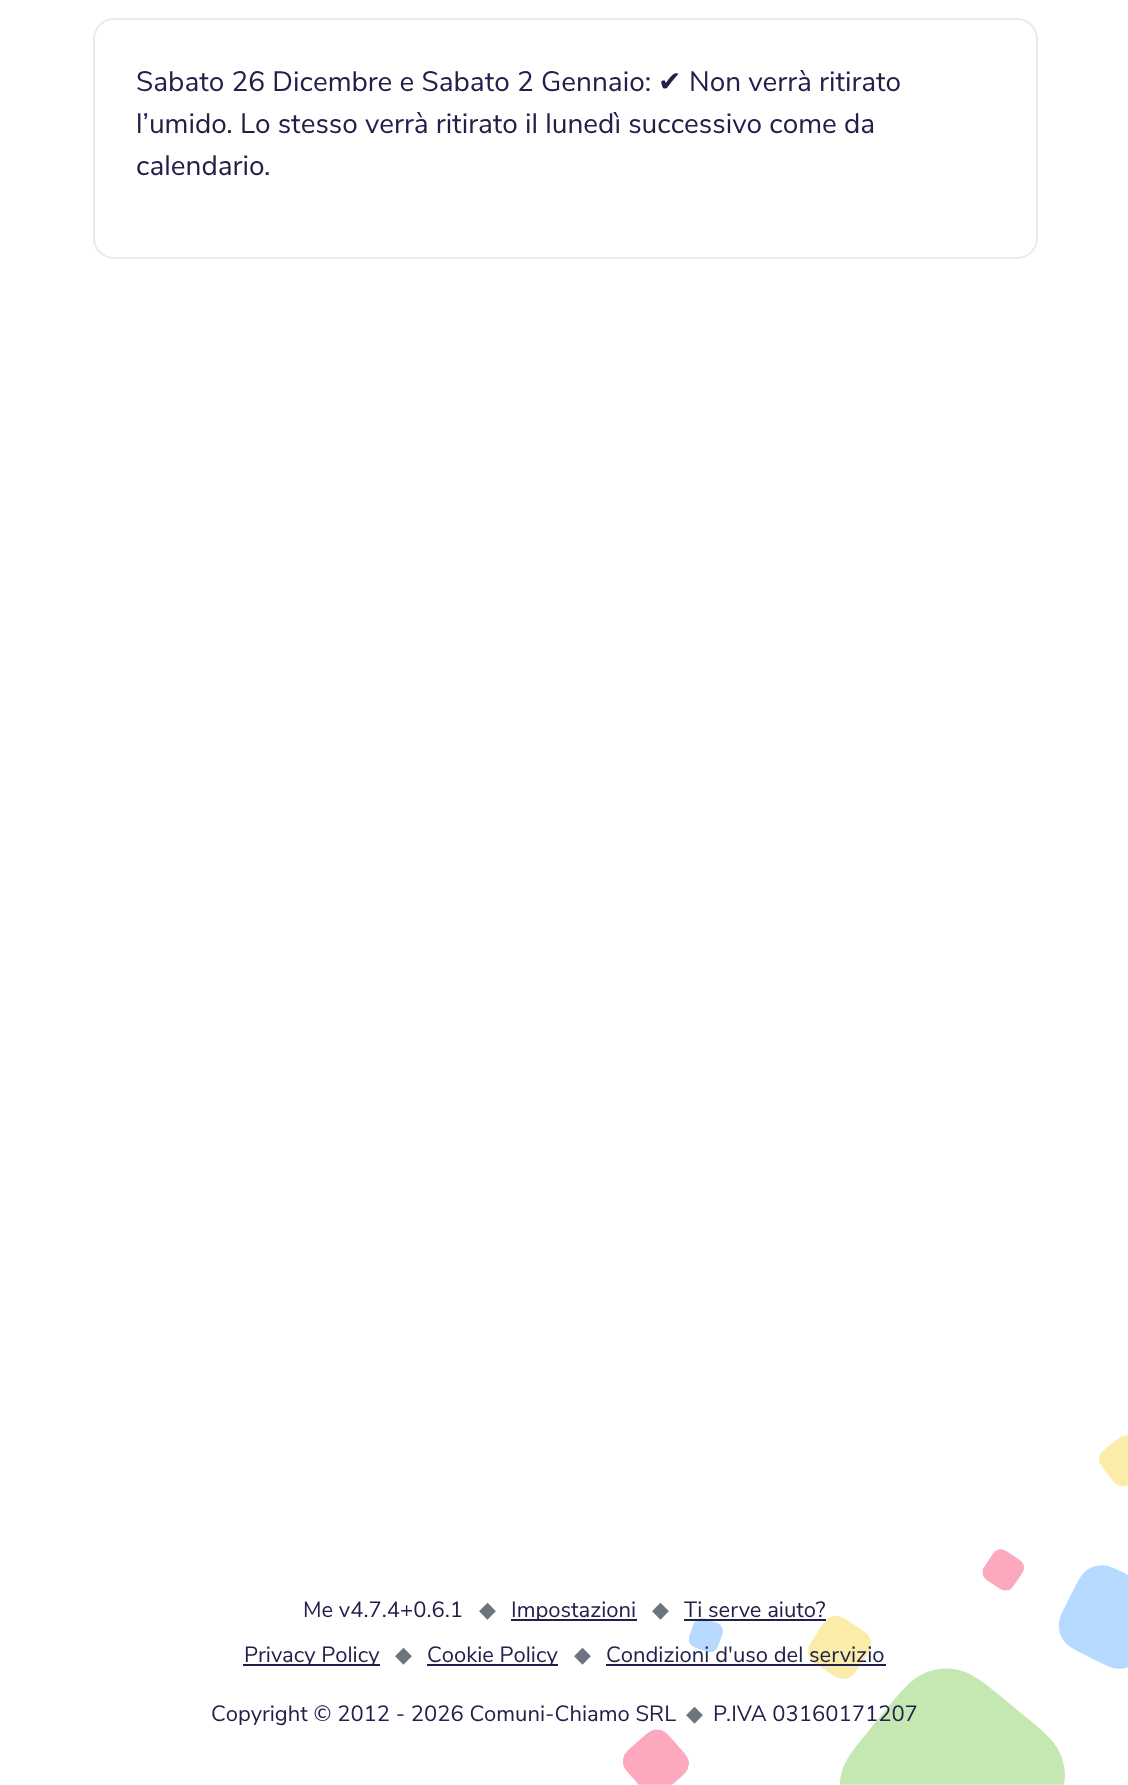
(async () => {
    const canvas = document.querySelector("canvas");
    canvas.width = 1128;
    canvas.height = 1785;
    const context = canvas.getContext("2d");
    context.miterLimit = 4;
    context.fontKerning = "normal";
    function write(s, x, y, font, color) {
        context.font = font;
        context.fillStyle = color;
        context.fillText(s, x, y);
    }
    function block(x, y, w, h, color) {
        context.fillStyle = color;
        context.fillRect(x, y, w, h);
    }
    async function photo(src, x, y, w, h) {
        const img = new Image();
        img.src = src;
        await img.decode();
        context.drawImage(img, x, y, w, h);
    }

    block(0, 0, 1128, 1785, "rgb(255, 255, 255)");
    await photo("media/1.png", 623, 1435, 505, 350);
    context.beginPath();
    context.roundRect(94, 19, 943, 239, 20);
    context.strokeStyle = "rgb(229, 236, 236)";
    context.lineWidth = 2;
    context.stroke();
    write("Sabato 26 Dicembre e Sabato 2 Gennaio:", 136, 91, "28px Nunito Sans", "rgb(33, 32, 75)");
    write("✔", 658, 91, "28px DejaVu Sans", "rgb(33, 32, 75)");
    write("Non verrà ritirato", 689, 91, "28px Nunito Sans", "rgb(33, 32, 75)");
    write("l’umido. Lo stesso verrà ritirato il lunedì successivo come da", 136, 133, "28px Nunito Sans", "rgb(33, 32, 75)");
    write("calendario.", 136, 175, "28px Nunito Sans", "rgb(33, 32, 75)");
    write("Me v4.7.4+0.6.1", 303, 1617, "22.05px Nunito Sans", "rgb(33, 32, 75)");
    write("◆", 479, 1617, "22.05px DejaVu Sans", "rgb(108, 117, 125)");
    block(511, 1619, 126, 2, "rgb(33, 32, 75)");
    write("Impostazioni", 511, 1617, "22.05px Nunito Sans", "rgb(33, 32, 75)");
    write("◆", 652, 1617, "22.05px DejaVu Sans", "rgb(108, 117, 125)");
    write("Ti serve aiuto?", 684, 1617, "22.05px Nunito Sans", "rgb(33, 32, 75)");
    block(684, 1619, 142, 2, "rgb(33, 32, 75)");
    block(243, 1664, 137, 2, "rgb(33, 32, 75)");
    write("Privacy Policy", 244, 1662, "22.05px Nunito Sans", "rgb(33, 32, 75)");
    write("◆", 395, 1662, "22.05px DejaVu Sans", "rgb(108, 117, 125)");
    block(427, 1664, 131, 2, "rgb(33, 32, 75)");
    write("Cookie Policy", 427, 1662, "22.05px Nunito Sans", "rgb(33, 32, 75)");
    write("◆", 574, 1662, "22.05px DejaVu Sans", "rgb(108, 117, 125)");
    write("Condizioni d'uso del servizio", 606, 1662, "22.05px Nunito Sans", "rgb(33, 32, 75)");
    block(606, 1664, 280, 2, "rgb(33, 32, 75)");
    write("Copyright © 2012 - 2026 Comuni-Chiamo SRL", 211, 1721, "22.05px Nunito Sans", "rgb(33, 32, 75)");
    write("◆", 686, 1721, "22.05px DejaVu Sans", "rgb(108, 117, 125)");
    write("P.IVA 03160171207", 713, 1721, "22.05px Nunito Sans", "rgb(33, 32, 75)");
})();
